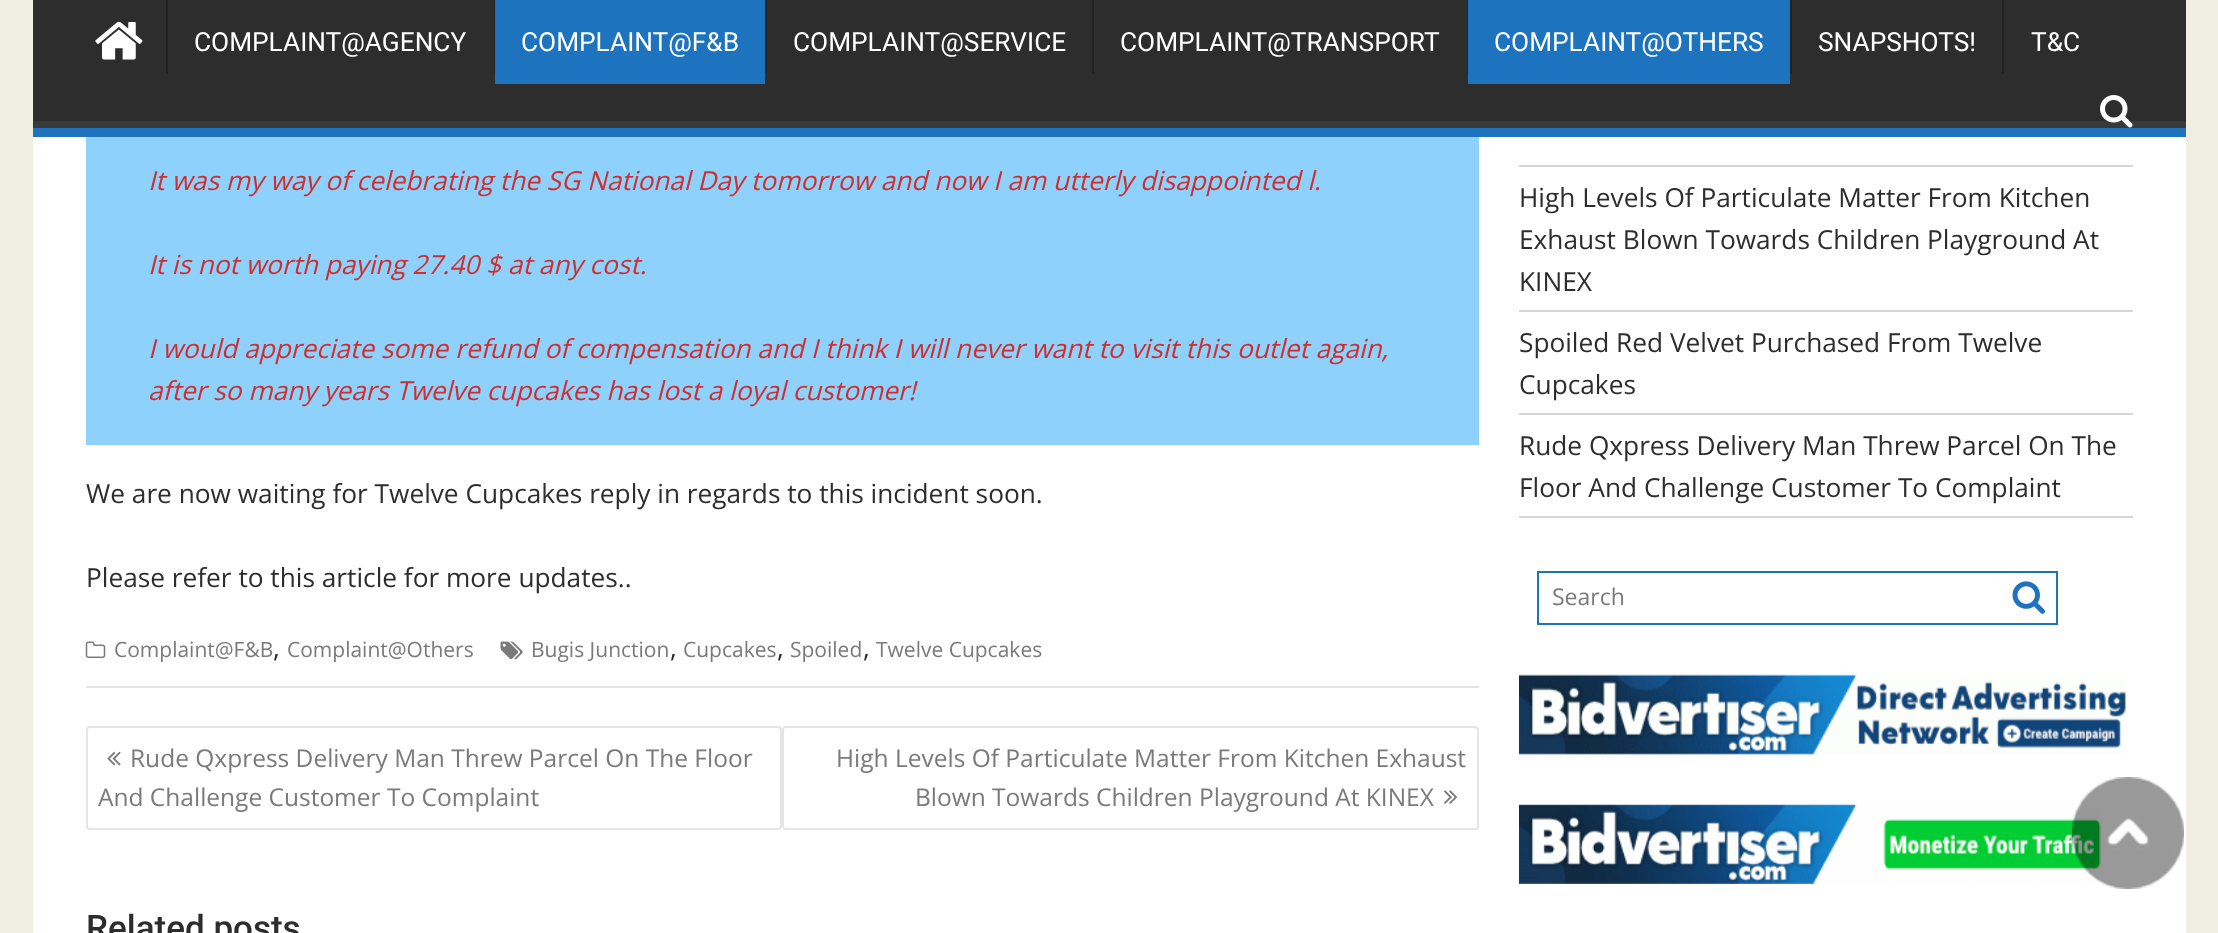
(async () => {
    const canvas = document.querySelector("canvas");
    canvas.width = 2218;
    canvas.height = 933;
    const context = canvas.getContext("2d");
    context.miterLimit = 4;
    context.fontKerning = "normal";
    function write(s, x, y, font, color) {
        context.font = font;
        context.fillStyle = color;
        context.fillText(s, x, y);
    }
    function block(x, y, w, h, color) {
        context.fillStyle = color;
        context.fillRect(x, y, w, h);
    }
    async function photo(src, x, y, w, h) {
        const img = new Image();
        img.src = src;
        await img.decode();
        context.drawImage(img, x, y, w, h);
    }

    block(0, 0, 2218, 933, "rgb(238, 238, 225)");
    block(33, 137, 2153, 796, "rgb(255, 255, 255)");
    block(33, 0, 2153, 121, "rgb(45, 45, 45)");
    context.save();
    context.beginPath();
    context.rect(33, 0, 2153, 128);
    context.clip();
    context.fillStyle = "rgb(57, 57, 57)";
    context.beginPath();
    context.moveTo(-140, -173);
    context.lineTo(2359, -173);
    context.lineTo(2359, 301);
    context.lineTo(-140, 301);
    context.closePath();
    context.moveTo(32, -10);
    context.lineTo(2184, -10);
    context.bezierCurveTo(2185, -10, 2186, -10, 2186, -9);
    context.lineTo(2186, 119);
    context.bezierCurveTo(2186, 120, 2185, 121, 2184, 121);
    context.lineTo(32, 121);
    context.bezierCurveTo(31, 121, 30, 120, 30, 119);
    context.lineTo(30, -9);
    context.bezierCurveTo(30, -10, 31, -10, 32, -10);
    context.closePath();
    context.fill("evenodd");
    context.restore();
    block(33, 128, 2153, 9, "rgb(30, 115, 190)");
    await photo("media/1.png", 95, 21, 48, 39);
    block(166, 0, 2, 74, "rgb(34, 34, 34)");
    write("COMPLAINT@AGENCY", 194, 51, "26.25px Roboto", "rgb(255, 255, 255)");
    block(494, 0, 1, 74, "rgb(34, 34, 34)");
    block(495, 0, 270, 84, "rgb(30, 115, 190)");
    write("COMPLAINT@F&B", 521, 51, "26.25px Roboto", "rgb(255, 255, 255)");
    block(765, 0, 2, 74, "rgb(34, 34, 34)");
    write("COMPLAINT@SERVICE", 793, 51, "26.25px Roboto", "rgb(255, 255, 255)");
    block(1092, 0, 2, 74, "rgb(34, 34, 34)");
    write("COMPLAINT@TRANSPORT", 1120, 51, "26.25px Roboto", "rgb(255, 255, 255)");
    block(1467, 0, 1, 74, "rgb(34, 34, 34)");
    block(1468, 0, 322, 84, "rgb(30, 115, 190)");
    write("COMPLAINT@OTHERS", 1494, 51, "26.25px Roboto", "rgb(255, 255, 255)");
    block(1790, 0, 2, 74, "rgb(34, 34, 34)");
    write("SNAPSHOTS!", 1818, 51, "26.25px Roboto", "rgb(255, 255, 255)");
    block(2002, 0, 2, 74, "rgb(34, 34, 34)");
    write("T&C", 2031, 51, "26.25px Roboto", "rgb(255, 255, 255)");
    await photo("media/2.png", 2100, 95, 33, 33);
    block(86, 686, 1393, 2, "rgb(229, 229, 229)");
    block(86, 137, 1393, 308, "rgb(142, 209, 252)");
    write("It was my way of celebrating the SG National Day tomorrow and now I am utterly disappointed l.", 148, 190, "italic 26.25px Open Sans", "rgb(207, 46, 46)");
    write("It is not worth paying 27.40 $ at any cost.", 148, 274, "italic 26.25px Open Sans", "rgb(207, 46, 46)");
    write("I would appreciate some refund of compensation and I think I will never want to visit this outlet again,", 148, 358, "italic 26.25px Open Sans", "rgb(207, 46, 46)");
    write("after so many years Twelve cupcakes has lost a loyal customer!", 148, 400, "italic 26.25px Open Sans", "rgb(207, 46, 46)");
    write("We are now waiting for Twelve Cupcakes reply in regards to this incident soon.", 86, 503, "26.25px Open Sans", "rgb(45, 45, 45)");
    write("Please refer to this article for more updates..", 86, 587, "26.25px Open Sans", "rgb(45, 45, 45)");
    await photo("media/3.png", 85, 641, 21, 17);
    write("Complaint@F&B", 114, 657, "21px Open Sans", "rgb(122, 122, 122)");
    write(",", 273, 657, "26.25px Open Sans", "rgb(45, 45, 45)");
    write("Complaint@Others", 287, 657, "21px Open Sans", "rgb(122, 122, 122)");
    await photo("media/4.png", 500, 641, 23, 19);
    write("Bugis Junction", 531, 657, "21px Open Sans", "rgb(122, 122, 122)");
    write(",", 670, 657, "26.25px Open Sans", "rgb(45, 45, 45)");
    write("Cupcakes", 683, 657, "21px Open Sans", "rgb(122, 122, 122)");
    write(",", 777, 657, "26.25px Open Sans", "rgb(45, 45, 45)");
    write("Spoiled", 790, 657, "21px Open Sans", "rgb(122, 122, 122)");
    write(",", 863, 657, "26.25px Open Sans", "rgb(45, 45, 45)");
    write("Twelve Cupcakes", 876, 657, "21px Open Sans", "rgb(122, 122, 122)");
    context.beginPath();
    context.roundRect(87, 727, 694, 102, 3);
    context.strokeStyle = "rgb(229, 229, 229)";
    context.lineWidth = 2;
    context.stroke();
    await photo("media/5.png", 107, 751, 14, 15);
    write("Rude Qxpress Delivery Man Threw Parcel On The Floor", 130, 767, "24.5px Open Sans", "rgb(122, 122, 122)");
    write("And Challenge Customer To Complaint", 98, 806, "24.5px Open Sans", "rgb(122, 122, 122)");
    context.beginPath();
    context.roundRect(783, 727, 695, 102, 3);
    context.stroke();
    write("High Levels Of Particulate Matter From Kitchen Exhaust", 836, 767, "24.5px Open Sans", "rgb(122, 122, 122)");
    write("Blown Towards Children Playground At KINEX", 915, 806, "24.5px Open Sans", "rgb(122, 122, 122)");
    await photo("media/6.png", 1444, 790, 14, 14);
    write("Related posts", 86, 940, "500 35px Roboto", "rgb(45, 45, 45)");
    block(1519, 165, 614, 2, "rgb(215, 215, 215)");
    block(1519, 310, 614, 2, "rgb(215, 215, 215)");
    write("High Levels Of Particulate Matter From Kitchen", 1519, 207, "26.25px Open Sans", "rgb(45, 45, 45)");
    write("Exhaust Blown Towards Children Playground At", 1519, 249, "26.25px Open Sans", "rgb(45, 45, 45)");
    write("KINEX", 1519, 291, "26.25px Open Sans", "rgb(45, 45, 45)");
    block(1519, 413, 614, 2, "rgb(215, 215, 215)");
    write("Spoiled Red Velvet Purchased From Twelve", 1519, 352, "26.25px Open Sans", "rgb(45, 45, 45)");
    write("Cupcakes", 1519, 394, "26.25px Open Sans", "rgb(45, 45, 45)");
    block(1519, 516, 614, 2, "rgb(215, 215, 215)");
    write("Rude Qxpress Delivery Man Threw Parcel On The", 1519, 455, "26.25px Open Sans", "rgb(45, 45, 45)");
    write("Floor And Challenge Customer To Complaint", 1519, 497, "26.25px Open Sans", "rgb(45, 45, 45)");
    context.strokeStyle = "rgb(30, 115, 190)";
    context.strokeRect(1538, 572, 519, 52);
    write("Search", 1552, 605, "23px Open Sans", "rgb(122, 122, 122)");
    await photo("media/7.png", 2012, 581, 33, 33);
    await photo("media/8.png", 1519, 674, 607, 81);
    await photo("media/9.png", 1519, 804, 583, 80);
    await photo("media/10.png", 2072, 777, 112, 112);
})();
